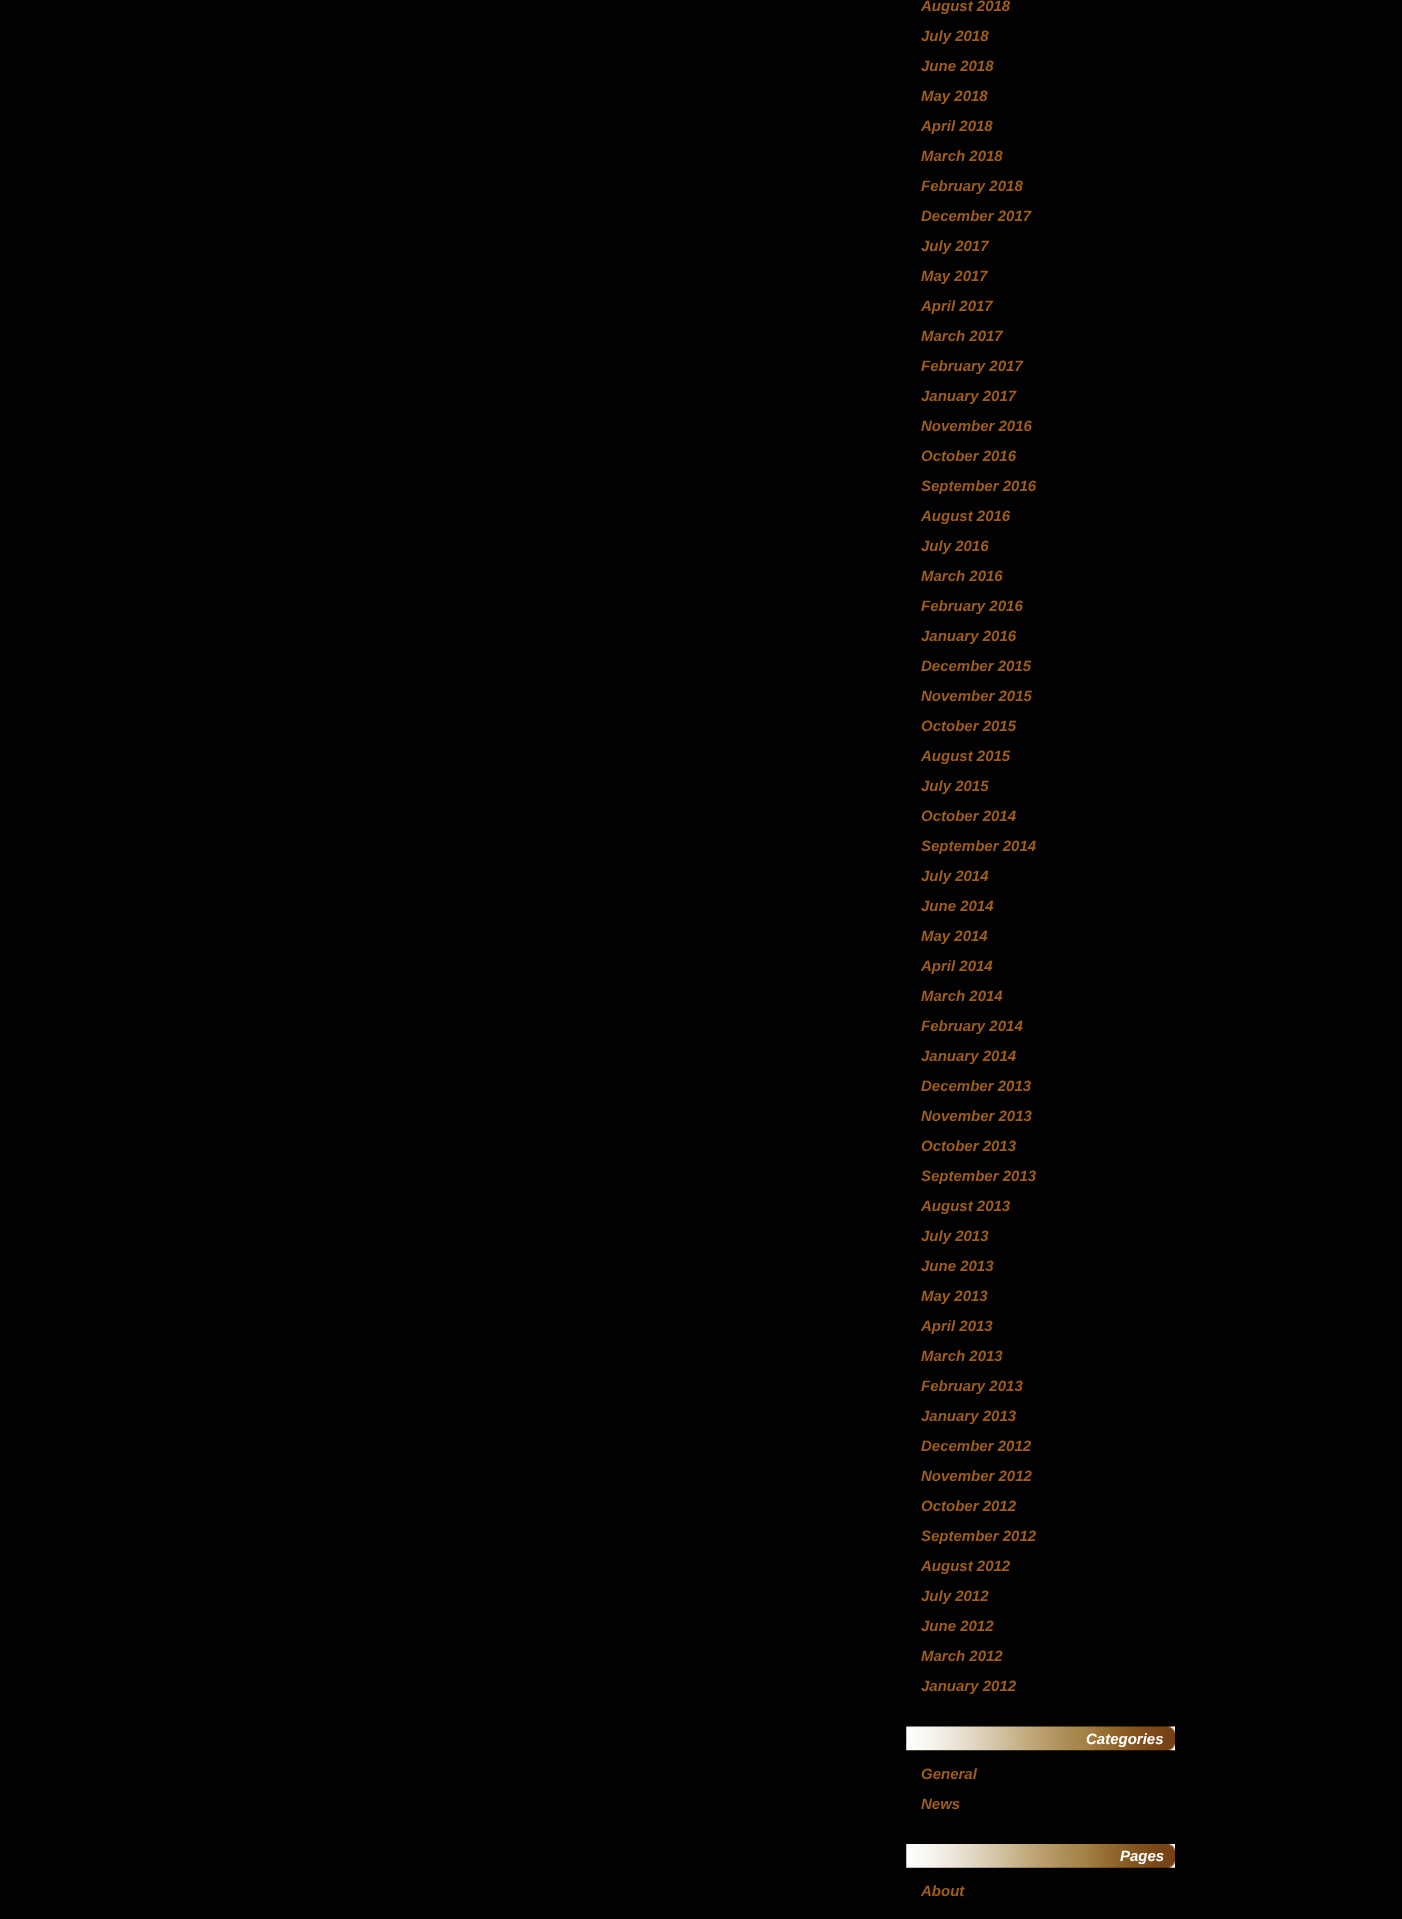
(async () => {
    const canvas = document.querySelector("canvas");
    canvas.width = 1402;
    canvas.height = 1919;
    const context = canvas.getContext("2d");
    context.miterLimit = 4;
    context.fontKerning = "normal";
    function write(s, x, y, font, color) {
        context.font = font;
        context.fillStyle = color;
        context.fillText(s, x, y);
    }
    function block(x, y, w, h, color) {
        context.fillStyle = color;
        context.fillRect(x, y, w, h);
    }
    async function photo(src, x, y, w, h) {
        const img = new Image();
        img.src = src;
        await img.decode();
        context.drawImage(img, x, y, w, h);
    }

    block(0, 0, 1402, 1919, "rgb(2, 2, 2)");
    write("August 2018", 921, 11, "italic bold 15px Liberation Sans", "rgb(158, 93, 28)");
    write("July 2018", 921, 41, "italic bold 15px Liberation Sans", "rgb(158, 93, 28)");
    write("June 2018", 921, 71, "italic bold 15px Liberation Sans", "rgb(158, 93, 28)");
    write("May 2018", 921, 101, "italic bold 15px Liberation Sans", "rgb(158, 93, 28)");
    write("April 2018", 921, 131, "italic bold 15px Liberation Sans", "rgb(158, 93, 28)");
    write("March 2018", 921, 161, "italic bold 15px Liberation Sans", "rgb(158, 93, 28)");
    write("February 2018", 921, 191, "italic bold 15px Liberation Sans", "rgb(158, 93, 28)");
    write("December 2017", 921, 221, "italic bold 15px Liberation Sans", "rgb(158, 93, 28)");
    write("July 2017", 921, 251, "italic bold 15px Liberation Sans", "rgb(158, 93, 28)");
    write("May 2017", 921, 281, "italic bold 15px Liberation Sans", "rgb(158, 93, 28)");
    write("April 2017", 921, 311, "italic bold 15px Liberation Sans", "rgb(158, 93, 28)");
    write("March 2017", 921, 341, "italic bold 15px Liberation Sans", "rgb(158, 93, 28)");
    write("February 2017", 921, 371, "italic bold 15px Liberation Sans", "rgb(158, 93, 28)");
    write("January 2017", 921, 401, "italic bold 15px Liberation Sans", "rgb(158, 93, 28)");
    write("November 2016", 921, 431, "italic bold 15px Liberation Sans", "rgb(158, 93, 28)");
    write("October 2016", 921, 461, "italic bold 15px Liberation Sans", "rgb(158, 93, 28)");
    write("September 2016", 921, 491, "italic bold 15px Liberation Sans", "rgb(158, 93, 28)");
    write("August 2016", 921, 521, "italic bold 15px Liberation Sans", "rgb(158, 93, 28)");
    write("July 2016", 921, 551, "italic bold 15px Liberation Sans", "rgb(158, 93, 28)");
    write("March 2016", 921, 581, "italic bold 15px Liberation Sans", "rgb(158, 93, 28)");
    write("February 2016", 921, 611, "italic bold 15px Liberation Sans", "rgb(158, 93, 28)");
    write("January 2016", 921, 641, "italic bold 15px Liberation Sans", "rgb(158, 93, 28)");
    write("December 2015", 921, 671, "italic bold 15px Liberation Sans", "rgb(158, 93, 28)");
    write("November 2015", 921, 701, "italic bold 15px Liberation Sans", "rgb(158, 93, 28)");
    write("October 2015", 921, 731, "italic bold 15px Liberation Sans", "rgb(158, 93, 28)");
    write("August 2015", 921, 761, "italic bold 15px Liberation Sans", "rgb(158, 93, 28)");
    write("July 2015", 921, 791, "italic bold 15px Liberation Sans", "rgb(158, 93, 28)");
    write("October 2014", 921, 821, "italic bold 15px Liberation Sans", "rgb(158, 93, 28)");
    write("September 2014", 921, 851, "italic bold 15px Liberation Sans", "rgb(158, 93, 28)");
    write("July 2014", 921, 881, "italic bold 15px Liberation Sans", "rgb(158, 93, 28)");
    write("June 2014", 921, 911, "italic bold 15px Liberation Sans", "rgb(158, 93, 28)");
    write("May 2014", 921, 941, "italic bold 15px Liberation Sans", "rgb(158, 93, 28)");
    write("April 2014", 921, 971, "italic bold 15px Liberation Sans", "rgb(158, 93, 28)");
    write("March 2014", 921, 1001, "italic bold 15px Liberation Sans", "rgb(158, 93, 28)");
    write("February 2014", 921, 1031, "italic bold 15px Liberation Sans", "rgb(158, 93, 28)");
    write("January 2014", 921, 1061, "italic bold 15px Liberation Sans", "rgb(158, 93, 28)");
    write("December 2013", 921, 1091, "italic bold 15px Liberation Sans", "rgb(158, 93, 28)");
    write("November 2013", 921, 1121, "italic bold 15px Liberation Sans", "rgb(158, 93, 28)");
    write("October 2013", 921, 1151, "italic bold 15px Liberation Sans", "rgb(158, 93, 28)");
    write("September 2013", 921, 1181, "italic bold 15px Liberation Sans", "rgb(158, 93, 28)");
    write("August 2013", 921, 1211, "italic bold 15px Liberation Sans", "rgb(158, 93, 28)");
    write("July 2013", 921, 1241, "italic bold 15px Liberation Sans", "rgb(158, 93, 28)");
    write("June 2013", 921, 1271, "italic bold 15px Liberation Sans", "rgb(158, 93, 28)");
    write("May 2013", 921, 1301, "italic bold 15px Liberation Sans", "rgb(158, 93, 28)");
    write("April 2013", 921, 1331, "italic bold 15px Liberation Sans", "rgb(158, 93, 28)");
    write("March 2013", 921, 1361, "italic bold 15px Liberation Sans", "rgb(158, 93, 28)");
    write("February 2013", 921, 1391, "italic bold 15px Liberation Sans", "rgb(158, 93, 28)");
    write("January 2013", 921, 1421, "italic bold 15px Liberation Sans", "rgb(158, 93, 28)");
    write("December 2012", 921, 1451, "italic bold 15px Liberation Sans", "rgb(158, 93, 28)");
    write("November 2012", 921, 1481, "italic bold 15px Liberation Sans", "rgb(158, 93, 28)");
    write("October 2012", 921, 1511, "italic bold 15px Liberation Sans", "rgb(158, 93, 28)");
    write("September 2012", 921, 1541, "italic bold 15px Liberation Sans", "rgb(158, 93, 28)");
    write("August 2012", 921, 1571, "italic bold 15px Liberation Sans", "rgb(158, 93, 28)");
    write("July 2012", 921, 1601, "italic bold 15px Liberation Sans", "rgb(158, 93, 28)");
    write("June 2012", 921, 1631, "italic bold 15px Liberation Sans", "rgb(158, 93, 28)");
    write("March 2012", 921, 1661, "italic bold 15px Liberation Sans", "rgb(158, 93, 28)");
    write("January 2012", 921, 1691, "italic bold 15px Liberation Sans", "rgb(158, 93, 28)");
    await photo("media/1.png", 906, 1726, 269, 25);
    write("Categories", 1086, 1744, "italic bold 15px Liberation Sans", "rgb(255, 255, 255)");
    write("General", 921, 1779, "italic bold 15px Liberation Sans", "rgb(158, 93, 28)");
    write("News", 921, 1809, "italic bold 15px Liberation Sans", "rgb(158, 93, 28)");
    await photo("media/2.png", 906, 1844, 269, 24);
    write("Pages", 1120, 1861, "italic bold 15px Liberation Sans", "rgb(255, 255, 255)");
    write("About", 921, 1896, "italic bold 15px Liberation Sans", "rgb(158, 93, 28)");
})();
